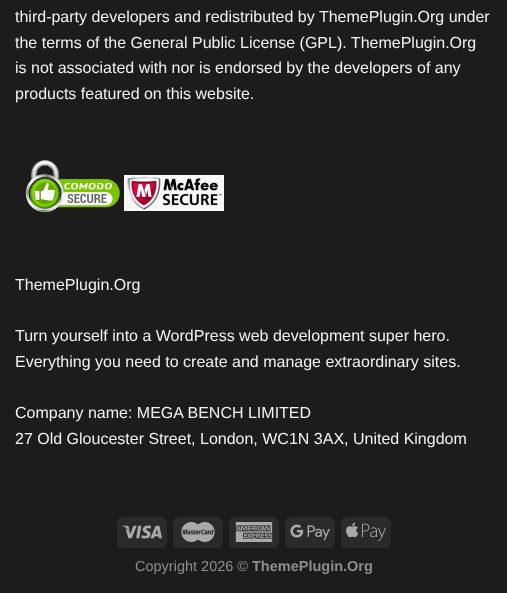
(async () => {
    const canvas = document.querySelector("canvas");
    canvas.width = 507;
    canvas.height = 593;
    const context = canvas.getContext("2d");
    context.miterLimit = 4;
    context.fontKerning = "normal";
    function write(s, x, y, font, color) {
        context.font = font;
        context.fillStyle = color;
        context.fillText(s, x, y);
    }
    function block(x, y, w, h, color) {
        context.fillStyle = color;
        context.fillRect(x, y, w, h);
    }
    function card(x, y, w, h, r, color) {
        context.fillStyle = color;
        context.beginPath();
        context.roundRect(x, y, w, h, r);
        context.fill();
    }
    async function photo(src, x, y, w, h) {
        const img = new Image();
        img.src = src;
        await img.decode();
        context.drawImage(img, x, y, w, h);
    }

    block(0, 0, 507, 593, "rgb(28, 28, 28)");
    write("third-party developers and redistributed by ThemePlugin.Org under", 15, 22, "16px Liberation Sans", "rgb(241, 241, 241)");
    write("the terms of the General Public License (GPL). ThemePlugin.Org", 15, 48, "16px Liberation Sans", "rgb(241, 241, 241)");
    write("is not associated with nor is endorsed by the developers of any", 15, 73, "16px Liberation Sans", "rgb(241, 241, 241)");
    write("products featured on this website.", 15, 99, "16px Liberation Sans", "rgb(241, 241, 241)");
    await photo("media/1.png", 25, 160, 199, 53);
    write("ThemePlugin.Org", 15, 290, "16px Liberation Sans", "rgb(241, 241, 241)");
    write("Turn yourself into a WordPress web development super hero.", 15, 341, "16px Liberation Sans", "rgb(241, 241, 241)");
    write("Everything you need to create and manage extraordinary sites.", 15, 367, "16px Liberation Sans", "rgb(241, 241, 241)");
    write("Company name: MEGA BENCH LIMITED", 15, 418, "16px Liberation Sans", "rgb(241, 241, 241)");
    write("27 Old Gloucester Street, London, WC1N 3AX, United Kingdom", 15, 444, "16px Liberation Sans", "rgb(241, 241, 241)");
    card(117, 517, 50, 31, 5, "rgb(42, 42, 42)");
    await photo("media/2.png", 122, 525, 40, 14);
    card(173, 517, 50, 31, 5, "rgb(42, 42, 42)");
    await photo("media/3.png", 181, 522, 34, 20);
    card(229, 517, 50, 31, 5, "rgb(42, 42, 42)");
    await photo("media/4.png", 235, 522, 38, 20);
    card(285, 517, 50, 31, 5, "rgb(42, 42, 42)");
    await photo("media/5.png", 290, 524, 40, 17);
    card(341, 517, 50, 31, 5, "rgb(42, 42, 42)");
    await photo("media/6.png", 346, 522, 40, 20);
    write("Copyright 2026 ©", 135, 571, "14.5px Liberation Sans", "rgb(142, 142, 142)");
    write("ThemePlugin.Org", 252, 571, "bold 14.5px Liberation Sans", "rgb(142, 142, 142)");
})();
